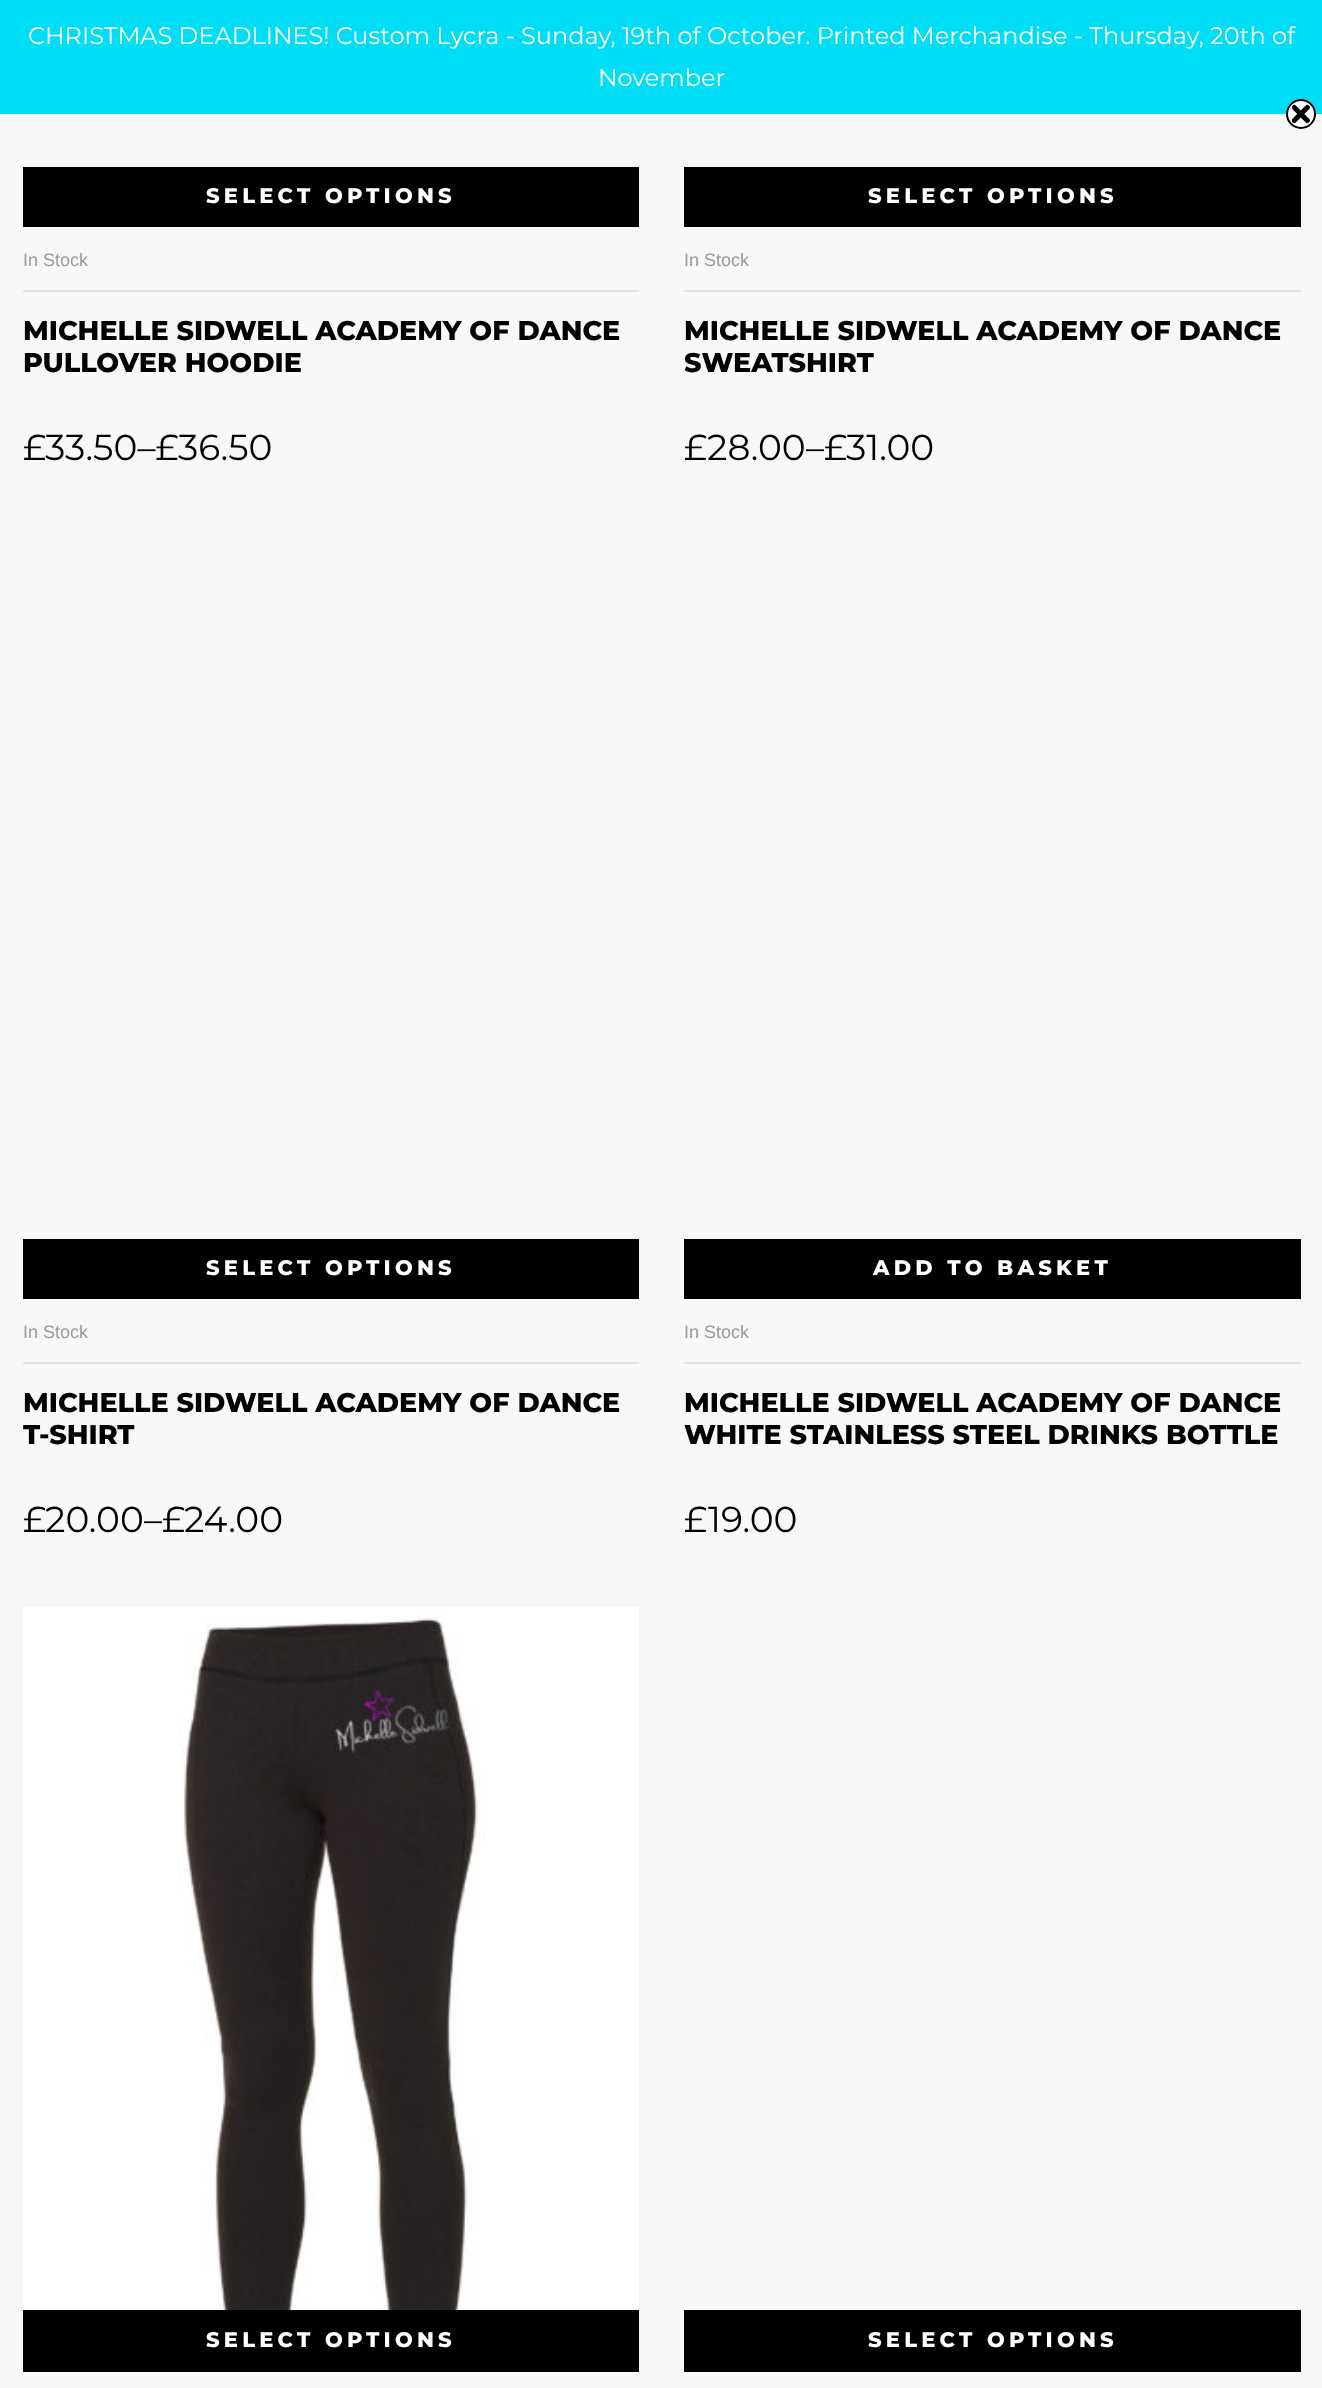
(async () => {
    const canvas = document.querySelector("canvas");
    canvas.width = 1322;
    canvas.height = 2388;
    const context = canvas.getContext("2d");
    context.miterLimit = 4;
    context.fontKerning = "normal";
    function write(s, x, y, font, color) {
        context.font = font;
        context.fillStyle = color;
        context.fillText(s, x, y);
    }
    function block(x, y, w, h, color) {
        context.fillStyle = color;
        context.fillRect(x, y, w, h);
    }
    async function photo(src, x, y, w, h) {
        const img = new Image();
        img.src = src;
        await img.decode();
        context.drawImage(img, x, y, w, h);
    }

    block(0, 0, 1322, 2388, "rgb(248, 248, 248)");
    block(0, 0, 1322, 114, "rgb(0, 222, 247)");
    write("CHRISTMAS DEADLINES! Custom Lycra - Sunday, 19th of October. Printed Merchandise - Thursday, 20th of", 28, 44, "24px Montserrat", "rgb(255, 255, 255)");
    write("November", 598, 86, "24px Montserrat", "rgb(255, 255, 255)");
    context.beginPath();
    context.arc(1301, 114, 15, 0, Math.PI * 2);
    context.fill();
    await photo("media/1.png", 1292, 104, 18, 20);
    context.beginPath();
    context.arc(1301, 114, 14, 0, Math.PI * 2);
    context.strokeStyle = "rgb(0, 0, 0)";
    context.lineWidth = 2;
    context.stroke();
    block(23, 167, 616, 60, "rgb(0, 0, 0)");
    context.letterSpacing = "4.25px";
    write("SELECT OPTIONS", 206, 203, "800 21px Montserrat", "rgb(255, 255, 255)");
    block(23, 290, 616, 2, "rgb(227, 227, 227)");
    context.letterSpacing = "0px";
    write("In Stock", 23, 266, "18px Liberation Sans", "rgb(153, 153, 153)");
    write("MICHELLE SIDWELL ACADEMY OF DANCE", 23, 340, "800 27px Montserrat", "rgb(0, 0, 0)");
    write("PULLOVER HOODIE", 23, 372, "800 27px Montserrat", "rgb(0, 0, 0)");
    write("£", 23, 460, "36px Montserrat", "rgb(0, 0, 0)");
    write("33.50–£", 45, 460, "36px Montserrat", "rgb(0, 0, 0)");
    write("36.50", 178, 460, "36px Montserrat", "rgb(0, 0, 0)");
    block(684, 167, 617, 60, "rgb(0, 0, 0)");
    context.letterSpacing = "4.25px";
    write("SELECT OPTIONS", 868, 203, "800 21px Montserrat", "rgb(255, 255, 255)");
    block(684, 290, 617, 2, "rgb(227, 227, 227)");
    context.letterSpacing = "0px";
    write("In Stock", 684, 266, "18px Liberation Sans", "rgb(153, 153, 153)");
    write("MICHELLE SIDWELL ACADEMY OF DANCE", 684, 340, "800 27px Montserrat", "rgb(0, 0, 0)");
    write("SWEATSHIRT", 684, 372, "800 27px Montserrat", "rgb(0, 0, 0)");
    write("£", 684, 460, "36px Montserrat", "rgb(0, 0, 0)");
    write("28.00–£", 707, 460, "36px Montserrat", "rgb(0, 0, 0)");
    write("31.00", 846, 460, "36px Montserrat", "rgb(0, 0, 0)");
    block(23, 1239, 616, 60, "rgb(0, 0, 0)");
    context.letterSpacing = "4.25px";
    write("SELECT OPTIONS", 206, 1275, "800 21px Montserrat", "rgb(255, 255, 255)");
    block(23, 1362, 616, 2, "rgb(227, 227, 227)");
    context.letterSpacing = "0px";
    write("In Stock", 23, 1338, "18px Liberation Sans", "rgb(153, 153, 153)");
    write("MICHELLE SIDWELL ACADEMY OF DANCE", 23, 1412, "800 27px Montserrat", "rgb(0, 0, 0)");
    write("T-SHIRT", 23, 1444, "800 27px Montserrat", "rgb(0, 0, 0)");
    write("£", 23, 1532, "36px Montserrat", "rgb(0, 0, 0)");
    write("20.00–£", 45, 1532, "36px Montserrat", "rgb(0, 0, 0)");
    write("24.00", 184, 1532, "36px Montserrat", "rgb(0, 0, 0)");
    block(684, 1239, 617, 60, "rgb(0, 0, 0)");
    context.letterSpacing = "4.25px";
    write("ADD TO BASKET", 873, 1275, "800 21px Montserrat", "rgb(255, 255, 255)");
    block(684, 1362, 617, 2, "rgb(227, 227, 227)");
    context.letterSpacing = "0px";
    write("In Stock", 684, 1338, "18px Liberation Sans", "rgb(153, 153, 153)");
    write("MICHELLE SIDWELL ACADEMY OF DANCE", 684, 1412, "800 27px Montserrat", "rgb(0, 0, 0)");
    write("WHITE STAINLESS STEEL DRINKS BOTTLE", 684, 1444, "800 27px Montserrat", "rgb(0, 0, 0)");
    write("£", 684, 1532, "36px Montserrat", "rgb(0, 0, 0)");
    write("19.00", 708, 1532, "36px Montserrat", "rgb(0, 0, 0)");
    await photo("media/2.png", 23, 1607, 616, 703);
    block(23, 2310, 616, 62, "rgb(0, 0, 0)");
    context.letterSpacing = "4.25px";
    write("SELECT OPTIONS", 206, 2347, "800 21px Montserrat", "rgb(255, 255, 255)");
    block(684, 2310, 617, 62, "rgb(0, 0, 0)");
    write("SELECT OPTIONS", 868, 2347, "800 21px Montserrat", "rgb(255, 255, 255)");
})();
